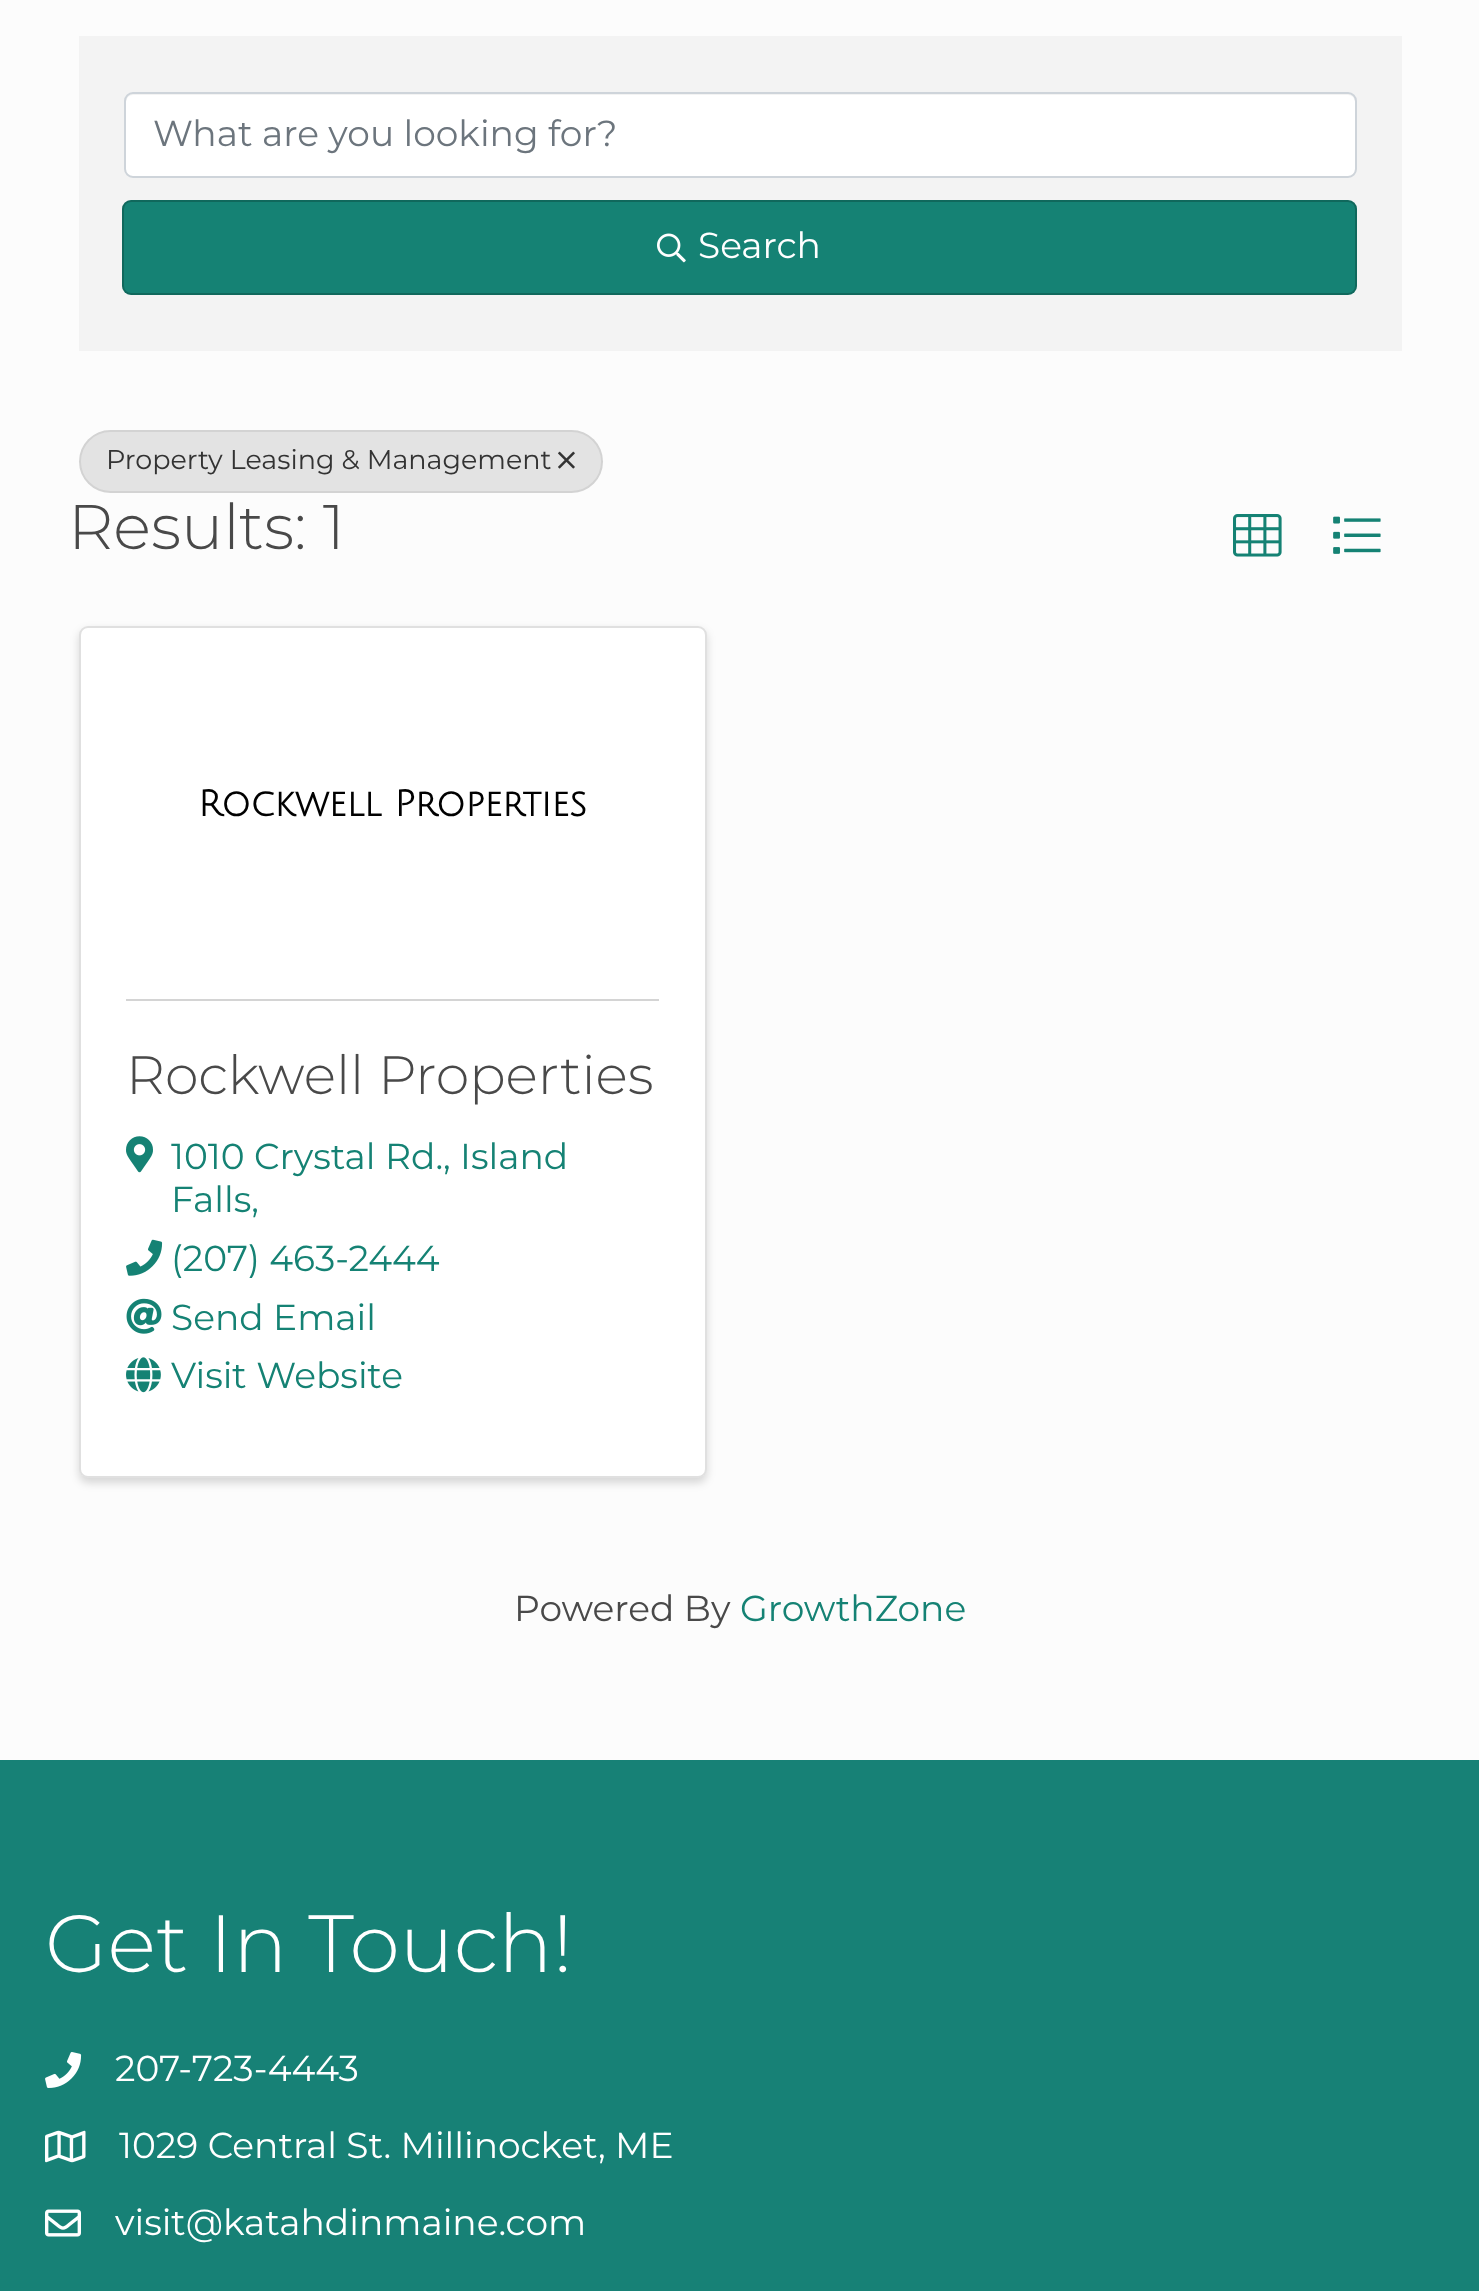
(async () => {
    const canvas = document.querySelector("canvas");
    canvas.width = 1479;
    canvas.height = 2291;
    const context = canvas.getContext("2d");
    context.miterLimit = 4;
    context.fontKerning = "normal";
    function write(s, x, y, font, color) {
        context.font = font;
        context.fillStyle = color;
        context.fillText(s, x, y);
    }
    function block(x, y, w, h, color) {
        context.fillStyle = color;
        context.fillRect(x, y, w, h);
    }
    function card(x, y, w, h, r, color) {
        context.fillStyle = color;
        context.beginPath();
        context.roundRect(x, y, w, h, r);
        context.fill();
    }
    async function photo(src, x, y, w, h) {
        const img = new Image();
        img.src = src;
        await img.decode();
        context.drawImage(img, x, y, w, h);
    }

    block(0, 0, 1479, 2291, "rgb(252, 252, 252)");
    block(79, 36, 1323, 315, "rgb(243, 243, 243)");
    card(126, 95, 1229, 81, 7, "rgb(255, 255, 255)");
    context.beginPath();
    context.roundRect(125, 93, 1231, 84, 8);
    context.strokeStyle = "rgb(206, 212, 218)";
    context.lineWidth = 2;
    context.stroke();
    write("What are you looking for?", 153, 146, "36px Montserrat", "rgb(108, 117, 125)");
    card(122, 200, 1235, 95, 9, "rgb(21, 130, 116)");
    context.beginPath();
    context.roundRect(123, 201, 1233, 93, 8);
    context.strokeStyle = "rgba(0, 0, 0, 0.2)";
    context.stroke();
    await photo("media/1.png", 657, 233, 29, 30);
    write("Search", 698, 258, "36px Montserrat", "rgb(255, 255, 255)");
    card(79, 430, 524, 63, 31.5, "rgb(227, 227, 227)");
    context.beginPath();
    context.roundRect(80, 431, 522, 61, 30.5);
    context.strokeStyle = "rgba(0, 0, 0, 0.07)";
    context.stroke();
    write("Property Leasing & Management", 106, 469, "27px Montserrat", "rgb(51, 51, 51)");
    await photo("media/2.png", 558, 451, 17, 18);
    write("Results: 1", 68, 549, "300 63px Montserrat", "rgb(73, 73, 73)");
    await photo("media/3.png", 1233, 514, 49, 43);
    await photo("media/4.png", 1333, 516, 48, 38);
    context.fillStyle = "rgba(0, 0, 0, 0.15)";
    context.filter = "blur(4px)";
    context.beginPath();
    context.roundRect(79, 630, 628, 853, 9);
    context.fill();
    context.filter = "none";
    card(79, 626, 628, 852, 9, "rgb(255, 255, 255)");
    context.beginPath();
    context.roundRect(80, 627, 626, 850, 8);
    context.strokeStyle = "rgba(0, 0, 0, 0.12)";
    context.stroke();
    write("Rockwell Properties", 198, 816, "bold 36px Julius Sans One", "rgb(0, 0, 0)");
    block(126, 999, 533, 2, "rgb(212, 212, 212)");
    write("Rockwell Properties", 126, 1094, "300 54px Montserrat", "rgb(73, 73, 73)");
    await photo("media/5.png", 126, 1136, 27, 37);
    write("1010 Crystal Rd., Island", 171, 1169, "36px Montserrat", "rgb(21, 130, 116)");
    write("Falls,", 171, 1212, "36px Montserrat", "rgb(21, 130, 116)");
    await photo("media/6.png", 126, 1239, 37, 37);
    write("(207) 463-2444", 171, 1271, "36px Montserrat", "rgb(21, 130, 116)");
    await photo("media/7.png", 126, 1298, 36, 36);
    write("Send Email", 171, 1330, "36px Montserrat", "rgb(21, 130, 116)");
    await photo("media/8.png", 126, 1357, 35, 36);
    write("Visit Website", 171, 1388, "36px Montserrat", "rgb(21, 130, 116)");
    write("Powered By", 514, 1621, "36px Montserrat", "rgb(73, 73, 73)");
    write("GrowthZone", 740, 1621, "36px Montserrat", "rgb(21, 130, 116)");
    block(0, 1760, 1479, 531, "rgb(23, 129, 118)");
    write("Get In Touch!", 45, 1972, "300 81px Montserrat", "rgb(255, 255, 255)");
    await photo("media/9.png", 45, 2052, 37, 36);
    write("207-723-4443", 115, 2081, "36px Montserrat", "rgb(255, 255, 255)");
    await photo("media/10.png", 45, 2130, 41, 33);
    write("1029 Central St. Millinocket, ME", 119, 2158, "36px Montserrat", "rgb(255, 255, 255)");
    await photo("media/11.png", 45, 2209, 36, 28);
    write("visit@katahdinmaine.com", 115, 2235, "36px Montserrat", "rgb(255, 255, 255)");
})();
